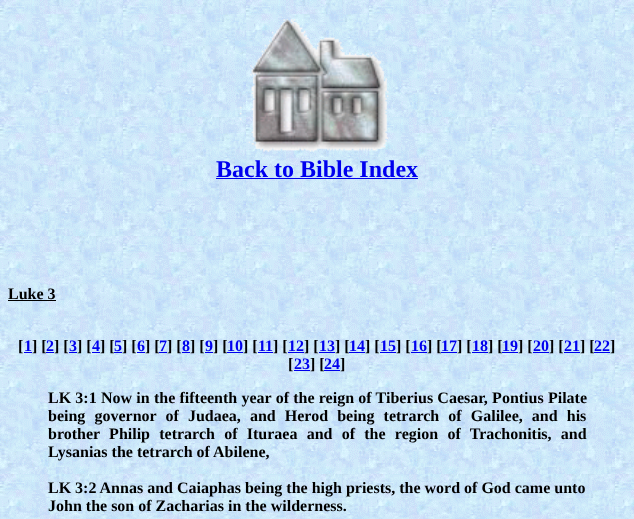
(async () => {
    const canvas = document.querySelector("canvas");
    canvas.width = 634;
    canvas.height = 519;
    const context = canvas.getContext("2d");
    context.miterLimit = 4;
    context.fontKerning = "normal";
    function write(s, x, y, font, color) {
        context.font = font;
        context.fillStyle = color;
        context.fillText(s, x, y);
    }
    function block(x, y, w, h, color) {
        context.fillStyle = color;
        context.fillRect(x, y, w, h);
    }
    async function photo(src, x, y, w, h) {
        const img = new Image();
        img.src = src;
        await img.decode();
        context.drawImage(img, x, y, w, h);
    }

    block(0, 0, 634, 519, "rgb(255, 255, 255)");
    await photo("media/1.png", 0, 0, 634, 519);
    await photo("media/2.png", 239, 18, 150, 134);
    write("Back to Bible Index", 216, 177, "bold 24px Liberation Serif", "rgb(0, 0, 238)");
    block(216, 178, 202, 1, "rgb(0, 0, 238)");
    write("Luke 3", 8, 299, "bold 16px Liberation Serif", "rgb(0, 0, 0)");
    block(8, 300, 48, 1, "rgb(0, 0, 0)");
    write("[", 18, 351, "bold 16px Liberation Serif", "rgb(0, 0, 0)");
    write("1", 24, 351, "bold 16px Liberation Serif", "rgb(0, 0, 238)");
    write("] [", 32, 351, "bold 16px Liberation Serif", "rgb(0, 0, 0)");
    block(24, 352, 8, 1, "rgb(0, 0, 238)");
    block(46, 352, 8, 1, "rgb(0, 0, 238)");
    write("2", 46, 351, "bold 16px Liberation Serif", "rgb(0, 0, 238)");
    write("] [", 54, 351, "bold 16px Liberation Serif", "rgb(0, 0, 0)");
    block(69, 352, 8, 1, "rgb(0, 0, 238)");
    write("3", 69, 351, "bold 16px Liberation Serif", "rgb(0, 0, 238)");
    write("] [", 77, 351, "bold 16px Liberation Serif", "rgb(0, 0, 0)");
    write("4", 92, 351, "bold 16px Liberation Serif", "rgb(0, 0, 238)");
    write("] [", 100, 351, "bold 16px Liberation Serif", "rgb(0, 0, 0)");
    block(92, 352, 8, 1, "rgb(0, 0, 238)");
    block(114, 352, 8, 1, "rgb(0, 0, 238)");
    write("5", 114, 351, "bold 16px Liberation Serif", "rgb(0, 0, 238)");
    write("] [", 122, 351, "bold 16px Liberation Serif", "rgb(0, 0, 0)");
    block(137, 352, 8, 1, "rgb(0, 0, 238)");
    write("6", 137, 351, "bold 16px Liberation Serif", "rgb(0, 0, 238)");
    write("] [", 145, 351, "bold 16px Liberation Serif", "rgb(0, 0, 0)");
    block(159, 352, 8, 1, "rgb(0, 0, 238)");
    write("7", 159, 351, "bold 16px Liberation Serif", "rgb(0, 0, 238)");
    write("] [", 167, 351, "bold 16px Liberation Serif", "rgb(0, 0, 0)");
    block(182, 352, 8, 1, "rgb(0, 0, 238)");
    write("8", 182, 351, "bold 16px Liberation Serif", "rgb(0, 0, 238)");
    write("] [", 190, 351, "bold 16px Liberation Serif", "rgb(0, 0, 0)");
    block(205, 352, 8, 1, "rgb(0, 0, 238)");
    write("9", 205, 351, "bold 16px Liberation Serif", "rgb(0, 0, 238)");
    write("] [", 213, 351, "bold 16px Liberation Serif", "rgb(0, 0, 0)");
    block(227, 352, 16, 1, "rgb(0, 0, 238)");
    write("10", 227, 351, "bold 16px Liberation Serif", "rgb(0, 0, 238)");
    write("] [", 243, 351, "bold 16px Liberation Serif", "rgb(0, 0, 0)");
    block(258, 352, 15, 1, "rgb(0, 0, 238)");
    write("11", 258, 351, "bold 16px Liberation Serif", "rgb(0, 0, 238)");
    write("] [", 273, 351, "bold 16px Liberation Serif", "rgb(0, 0, 0)");
    block(288, 352, 16, 1, "rgb(0, 0, 238)");
    write("12", 288, 351, "bold 16px Liberation Serif", "rgb(0, 0, 238)");
    write("] [", 304, 351, "bold 16px Liberation Serif", "rgb(0, 0, 0)");
    write("13", 319, 351, "bold 16px Liberation Serif", "rgb(0, 0, 238)");
    write("] [", 335, 351, "bold 16px Liberation Serif", "rgb(0, 0, 0)");
    block(319, 352, 16, 1, "rgb(0, 0, 238)");
    block(349, 352, 16, 1, "rgb(0, 0, 238)");
    write("14", 349, 351, "bold 16px Liberation Serif", "rgb(0, 0, 238)");
    write("] [", 365, 351, "bold 16px Liberation Serif", "rgb(0, 0, 0)");
    block(380, 352, 16, 1, "rgb(0, 0, 238)");
    write("15", 380, 351, "bold 16px Liberation Serif", "rgb(0, 0, 238)");
    write("] [", 396, 351, "bold 16px Liberation Serif", "rgb(0, 0, 0)");
    write("16", 411, 351, "bold 16px Liberation Serif", "rgb(0, 0, 238)");
    write("] [", 427, 351, "bold 16px Liberation Serif", "rgb(0, 0, 0)");
    block(411, 352, 16, 1, "rgb(0, 0, 238)");
    block(441, 352, 16, 1, "rgb(0, 0, 238)");
    write("17", 441, 351, "bold 16px Liberation Serif", "rgb(0, 0, 238)");
    write("] [", 457, 351, "bold 16px Liberation Serif", "rgb(0, 0, 0)");
    block(472, 352, 16, 1, "rgb(0, 0, 238)");
    write("18", 472, 351, "bold 16px Liberation Serif", "rgb(0, 0, 238)");
    write("] [", 488, 351, "bold 16px Liberation Serif", "rgb(0, 0, 0)");
    block(502, 352, 16, 1, "rgb(0, 0, 238)");
    write("19", 502, 351, "bold 16px Liberation Serif", "rgb(0, 0, 238)");
    write("] [", 518, 351, "bold 16px Liberation Serif", "rgb(0, 0, 0)");
    block(533, 352, 16, 1, "rgb(0, 0, 238)");
    write("20", 533, 351, "bold 16px Liberation Serif", "rgb(0, 0, 238)");
    write("] [", 549, 351, "bold 16px Liberation Serif", "rgb(0, 0, 0)");
    block(564, 352, 16, 1, "rgb(0, 0, 238)");
    write("21", 564, 351, "bold 16px Liberation Serif", "rgb(0, 0, 238)");
    write("] [", 580, 351, "bold 16px Liberation Serif", "rgb(0, 0, 0)");
    block(594, 352, 16, 1, "rgb(0, 0, 238)");
    write("22", 594, 351, "bold 16px Liberation Serif", "rgb(0, 0, 238)");
    write("]", 610, 351, "bold 16px Liberation Serif", "rgb(0, 0, 0)");
    write("[", 288, 369, "bold 16px Liberation Serif", "rgb(0, 0, 0)");
    block(294, 370, 16, 1, "rgb(0, 0, 238)");
    write("23", 294, 369, "bold 16px Liberation Serif", "rgb(0, 0, 238)");
    write("] [", 310, 369, "bold 16px Liberation Serif", "rgb(0, 0, 0)");
    block(324, 370, 16, 1, "rgb(0, 0, 238)");
    write("24", 324, 369, "bold 16px Liberation Serif", "rgb(0, 0, 238)");
    write("]", 340, 369, "bold 16px Liberation Serif", "rgb(0, 0, 0)");
    context.wordSpacing = "0.25px";
    write("LK 3:1 Now in the fifteenth year of the reign of Tiberius Caesar, Pontius Pilate", 48, 403, "bold 16px Liberation Serif", "rgb(0, 0, 0)");
    context.wordSpacing = "5.1px";
    write("being governor of Judaea, and Herod being tetrarch of Galilee, and his", 48, 421, "bold 16px Liberation Serif", "rgb(0, 0, 0)");
    context.wordSpacing = "5.25px";
    write("brother Philip tetrarch of Ituraea and of the region of Trachonitis, and", 48, 439, "bold 16px Liberation Serif", "rgb(0, 0, 0)");
    context.wordSpacing = "0px";
    write("Lysanias the tetrarch of Abilene,", 48, 457, "bold 16px Liberation Serif", "rgb(0, 0, 0)");
    write("LK 3:2 Annas and Caiaphas being the high priests, the word of God came unto", 48, 493, "bold 16px Liberation Serif", "rgb(0, 0, 0)");
    write("John the son of Zacharias in the wilderness.", 48, 511, "bold 16px Liberation Serif", "rgb(0, 0, 0)");
})();
